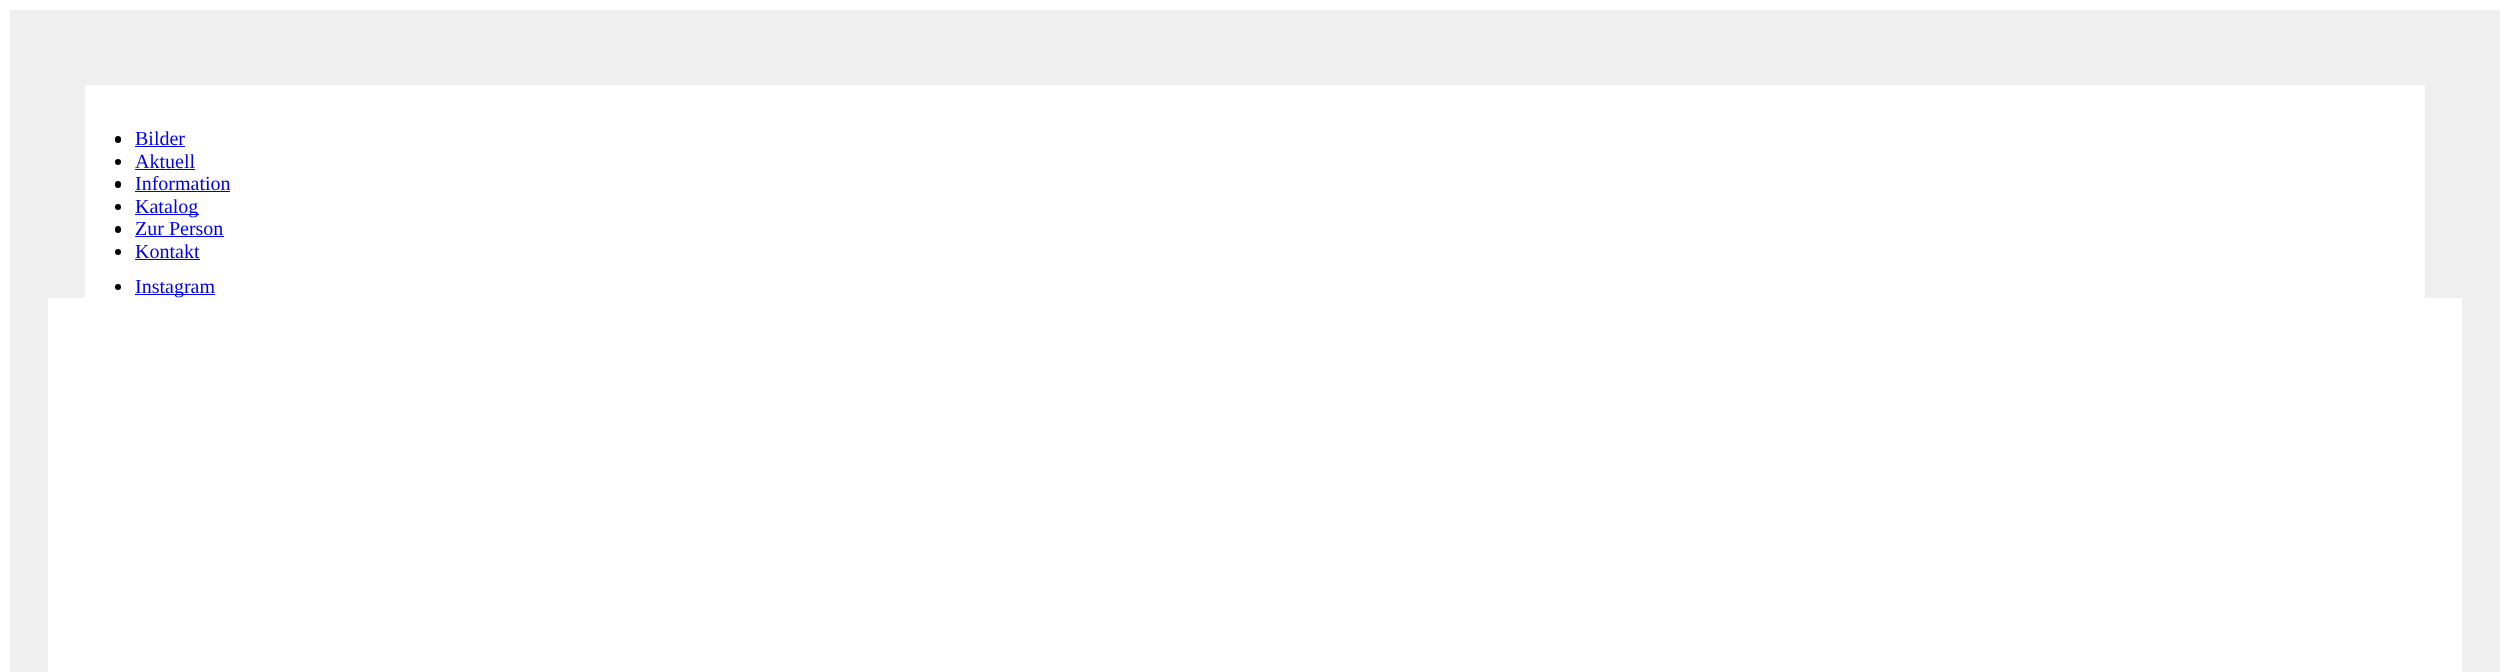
(async () => {
    const canvas = document.querySelector("canvas");
    canvas.width = 2509;
    canvas.height = 672;
    const context = canvas.getContext("2d");
    context.miterLimit = 4;
    context.fontKerning = "normal";
    function write(s, x, y, font, color) {
        context.font = font;
        context.fillStyle = color;
        context.fillText(s, x, y);
    }
    function block(x, y, w, h, color) {
        context.fillStyle = color;
        context.fillRect(x, y, w, h);
    }
    function card(x, y, w, h, r, color) {
        context.fillStyle = color;
        context.beginPath();
        context.roundRect(x, y, w, h, r);
        context.fill();
    }

    block(0, 0, 2509, 672, "rgb(255, 255, 255)");
    context.strokeStyle = "rgb(239, 239, 239)";
    context.lineWidth = 38;
    context.strokeRect(29, 29, 2452, 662);
    block(85, 48, 2340, 37, "rgb(239, 239, 239)");
    block(2425, 48, 37, 250, "rgb(239, 239, 239)");
    block(48, 48, 37, 250, "rgb(239, 239, 239)");
    card(115, 136, 6, 7, 3, "rgb(0, 0, 0)");
    write("Bilder", 135, 145, "20px Liberation Serif", "rgb(0, 0, 238)");
    block(135, 146, 50, 1, "rgb(0, 0, 238)");
    context.fillStyle = "rgb(0, 0, 0)";
    context.beginPath();
    context.arc(118, 162, 3, 0, Math.PI * 2);
    context.fill();
    write("Aktuell", 135, 168, "20px Liberation Serif", "rgb(0, 0, 238)");
    block(135, 169, 60, 1, "rgb(0, 0, 238)");
    card(115, 181, 6, 7, 3, "rgb(0, 0, 0)");
    write("Information", 135, 190, "20px Liberation Serif", "rgb(0, 0, 238)");
    block(135, 191, 95, 1, "rgb(0, 0, 238)");
    context.fillStyle = "rgb(0, 0, 0)";
    context.beginPath();
    context.arc(118, 207, 3, 0, Math.PI * 2);
    context.fill();
    block(135, 214, 64, 1, "rgb(0, 0, 238)");
    write("Katalog", 135, 213, "20px Liberation Serif", "rgb(0, 0, 238)");
    card(115, 226, 6, 7, 3, "rgb(0, 0, 0)");
    write("Zur Person", 135, 235, "20px Liberation Serif", "rgb(0, 0, 238)");
    block(135, 236, 89, 1, "rgb(0, 0, 238)");
    context.fillStyle = "rgb(0, 0, 0)";
    context.beginPath();
    context.arc(118, 252, 3, 0, Math.PI * 2);
    context.fill();
    write("Kontakt", 135, 258, "20px Liberation Serif", "rgb(0, 0, 238)");
    block(135, 259, 65, 1, "rgb(0, 0, 238)");
    context.fillStyle = "rgb(0, 0, 0)";
    context.beginPath();
    context.arc(118, 287, 3, 0, Math.PI * 2);
    context.fill();
    block(135, 294, 80, 1, "rgb(0, 0, 238)");
    write("Instagram", 135, 293, "20px Liberation Serif", "rgb(0, 0, 238)");
})();
